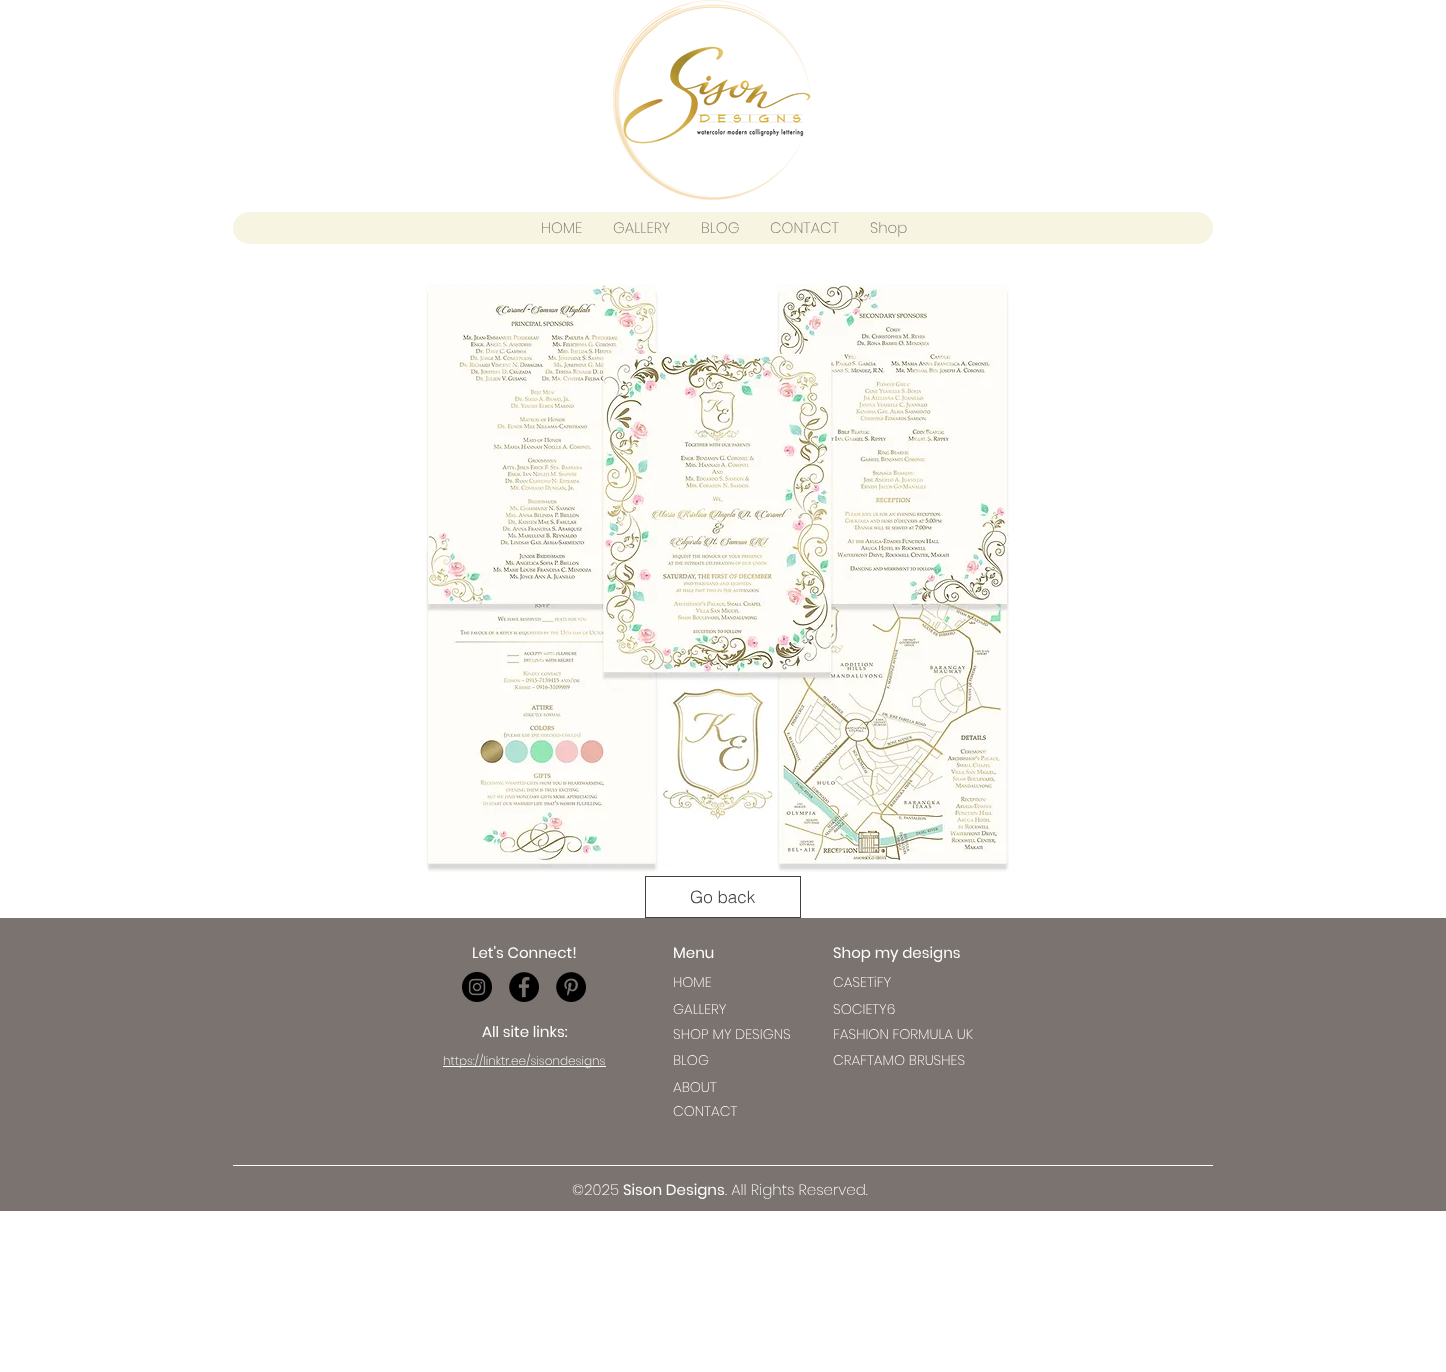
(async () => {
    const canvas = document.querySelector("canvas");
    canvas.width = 1446;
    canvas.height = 1372;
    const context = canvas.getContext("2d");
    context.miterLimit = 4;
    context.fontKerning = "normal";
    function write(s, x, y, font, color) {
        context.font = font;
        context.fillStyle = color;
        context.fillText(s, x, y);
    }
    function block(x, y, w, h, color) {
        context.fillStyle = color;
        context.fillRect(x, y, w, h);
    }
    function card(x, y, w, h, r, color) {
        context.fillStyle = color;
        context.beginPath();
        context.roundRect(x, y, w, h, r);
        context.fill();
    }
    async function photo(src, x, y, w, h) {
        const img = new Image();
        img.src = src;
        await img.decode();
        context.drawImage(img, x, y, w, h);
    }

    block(0, 0, 1446, 1372, "rgb(255, 255, 255)");
    await photo("media/1.png", 613, 0, 198, 200);
    card(233, 212, 980, 32, 16, "rgb(247, 245, 225)");
    write("HOME", 541, 233, "200 15px Poppins", "rgb(123, 115, 111)");
    write("GALLERY", 613, 233, "200 15px Poppins", "rgb(123, 115, 111)");
    write("BLOG", 701, 233, "200 15px Poppins", "rgb(123, 115, 111)");
    write("CONTACT", 770, 233, "200 15px Poppins", "rgb(123, 115, 111)");
    write("Shop", 870, 233, "200 15px Poppins", "rgb(123, 115, 111)");
    await photo("media/2.png", 425, 284, 584, 588);
    context.strokeStyle = "rgb(65, 65, 65)";
    context.strokeRect(645.5, 876.5, 155, 41);
    write("Go back", 690, 903, "300 17px helvetica", "rgb(65, 65, 65)");
    block(0, 918, 1446, 293, "rgb(123, 115, 111)");
    write("Let's Connect!", 472, 958, "15px Poppins", "rgb(255, 255, 255)");
    write("Menu", 673, 958, "15px Poppins", "rgb(255, 255, 255)");
    write("Shop my designs", 833, 958, "15px Poppins", "rgb(255, 255, 255)");
    await photo("media/3.png", 462, 972, 30, 30);
    await photo("media/4.png", 509, 972, 30, 30);
    await photo("media/5.png", 556, 972, 30, 30);
    write("HOME", 673, 987, "200 14px Poppins", "rgb(255, 255, 255)");
    write("CASETiFY", 833, 987, "200 14px Poppins", "rgb(255, 255, 255)");
    write("GALLERY", 673, 1014, "200 14px Poppins", "rgb(255, 255, 255)");
    write("SOCIETY6", 833, 1014, "200 14px Poppins", "rgb(255, 255, 255)");
    write("All site links:", 482, 1037, "15px Poppins", "rgb(255, 255, 255)");
    write("SHOP MY DESIGNS", 673, 1039, "200 14px Poppins", "rgb(255, 255, 255)");
    write("FASHION FORMULA UK", 833, 1039, "200 14px Poppins", "rgb(255, 255, 255)");
    block(443, 1066, 163, 1, "rgb(255, 255, 255)");
    write("https://linktr.ee/sisondesigns", 443, 1065, "200 12px Poppins", "rgb(255, 255, 255)");
    write("BLOG", 673, 1065, "200 14px Poppins", "rgb(255, 255, 255)");
    write("CRAFTAMO BRUSHES", 833, 1065, "200 14px Poppins", "rgb(255, 255, 255)");
    write("ABOUT", 673, 1092, "200 14px Poppins", "rgb(255, 255, 255)");
    write("CONTACT", 673, 1116, "200 14px Poppins", "rgb(255, 255, 255)");
    block(233, 1165, 980, 1, "rgb(255, 255, 255)");
    write("©2025", 572, 1195, "200 15px Poppins", "rgb(255, 255, 255)");
    write("Sison Designs", 623, 1195, "15px Poppins", "rgb(255, 255, 255)");
    write(". All Rights Reserved.", 725, 1195, "200 15px Poppins", "rgb(255, 255, 255)");
})();
